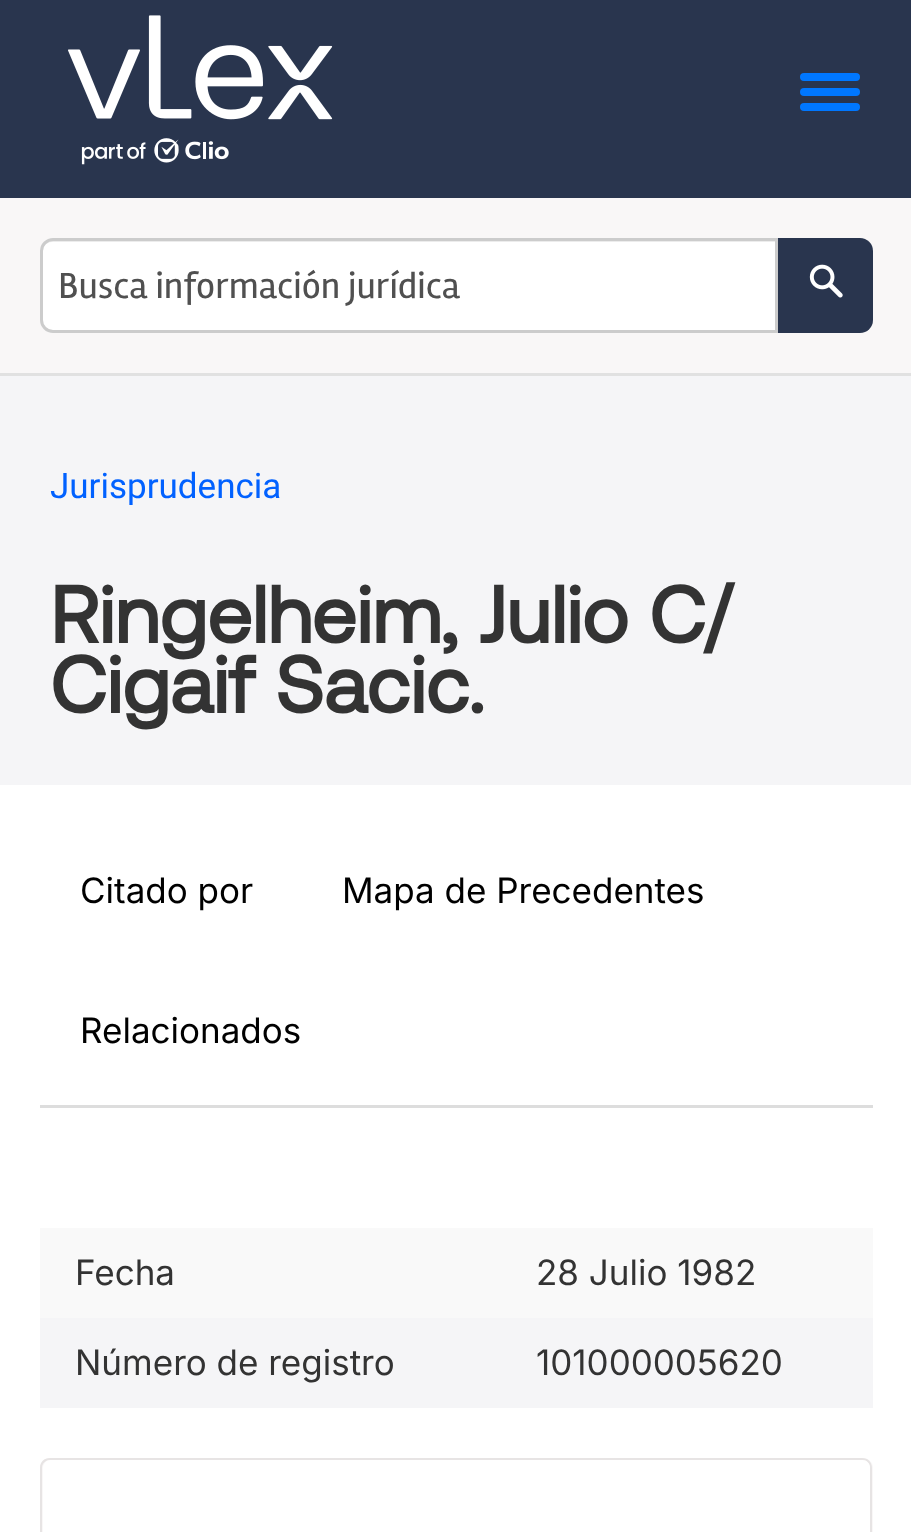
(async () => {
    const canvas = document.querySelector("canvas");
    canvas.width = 911;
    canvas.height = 1532;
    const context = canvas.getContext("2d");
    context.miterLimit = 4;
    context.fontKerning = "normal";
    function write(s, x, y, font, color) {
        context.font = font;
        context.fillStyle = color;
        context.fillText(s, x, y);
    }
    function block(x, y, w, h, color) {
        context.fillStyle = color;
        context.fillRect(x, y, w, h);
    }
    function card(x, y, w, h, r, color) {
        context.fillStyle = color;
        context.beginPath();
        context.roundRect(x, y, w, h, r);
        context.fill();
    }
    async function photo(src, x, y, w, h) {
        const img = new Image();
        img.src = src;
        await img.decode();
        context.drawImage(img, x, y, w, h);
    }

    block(0, 0, 911, 1532, "rgb(245, 245, 247)");
    block(0, 0, 911, 198, "rgb(41, 53, 78)");
    await photo("media/1.png", 68, 15, 265, 150);
    card(800, 88, 60, 8, 4, "rgb(0, 119, 255)");
    card(800, 73, 60, 8, 4, "rgb(0, 119, 255)");
    card(800, 103, 60, 8, 4, "rgb(0, 119, 255)");
    block(0, 198, 911, 175, "rgb(249, 247, 247)");
    block(0, 373, 911, 3, "rgb(225, 225, 225)");
    context.fillStyle = "rgb(255, 255, 255)";
    context.beginPath();
    context.roundRect(40, 238, 738, 95, [13, 0, 0, 13]);
    context.fill();
    context.fillStyle = "rgb(236, 236, 236)";
    context.beginPath();
    context.moveTo(52, 242);
    context.lineTo(775, 242);
    context.lineTo(775, 240);
    context.lineTo(53, 240);
    context.bezierCurveTo(48, 240, 44, 243, 43, 247);
    context.bezierCurveTo(45, 244, 49, 242, 52, 242);
    context.closePath();
    context.fill();
    context.beginPath();
    context.roundRect(41.5, 239.5, 735, 92, [11.5, 0, 0, 11.5]);
    context.strokeStyle = "rgb(204, 204, 204)";
    context.lineWidth = 3;
    context.stroke();
    write("Busca información jurídica", 58, 298, "37.5px Rambla", "rgb(80, 80, 80)");
    context.fillStyle = "rgb(41, 53, 78)";
    context.beginPath();
    context.roundRect(778, 238, 95, 95, [0, 13, 13, 0]);
    context.fill();
    await photo("media/2.png", 809, 264, 34, 34);
    context.save();
    context.beginPath();
    context.rect(50, 460, 813, 45);
    context.clip();
    write("Jurisprudencia", 50, 498, "35px Roboto", "rgb(1, 97, 255)");
    context.restore();
    write("Ringelheim, Julio C/", 50, 643, "bold 80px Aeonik", "rgb(51, 51, 51)");
    write("Cigaif Sacic.", 50, 713, "bold 80px Aeonik", "rgb(51, 51, 51)");
    block(0, 785, 911, 747, "rgb(255, 255, 255)");
    block(40, 1105, 833, 3, "rgb(221, 221, 221)");
    write("Citado por", 80, 903, "35px Inter", "rgb(0, 0, 0)");
    write("Mapa de Precedentes", 342, 903, "35px Inter", "rgb(0, 0, 0)");
    write("Relacionados", 80, 1043, "35px Inter", "rgb(0, 0, 0)");
    block(40, 1228, 833, 90, "rgb(249, 249, 249)");
    write("Fecha", 75, 1285, "35px Inter", "rgb(51, 51, 51)");
    write("28 Julio 1982", 536, 1285, "35px Inter", "rgb(51, 51, 51)");
    block(40, 1318, 833, 90, "rgb(245, 245, 247)");
    write("Número de registro", 75, 1375, "35px Inter", "rgb(51, 51, 51)");
    write("101000005620", 536, 1375, "35px Inter", "rgb(51, 51, 51)");
    context.fillStyle = "rgb(249, 247, 247)";
    context.beginPath();
    context.moveTo(50, 1458);
    context.lineTo(863, 1458);
    context.bezierCurveTo(868.5, 1458, 873, 1462.5, 873, 1468);
    context.lineTo(873, 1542);
    context.lineTo(40, 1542);
    context.lineTo(40, 1468);
    context.bezierCurveTo(40, 1462.5, 44.5, 1458, 50, 1458);
    context.closePath();
    context.fill();
    context.fillStyle = "rgb(231, 228, 228)";
    context.beginPath();
    context.moveTo(50, 1458);
    context.lineTo(862, 1458);
    context.bezierCurveTo(868, 1458, 872, 1462, 872, 1468);
    context.lineTo(872, 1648);
    context.lineTo(40, 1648);
    context.lineTo(40, 1468);
    context.bezierCurveTo(40, 1462, 44, 1458, 50, 1458);
    context.closePath();
    context.moveTo(50, 1460);
    context.lineTo(862, 1460);
    context.bezierCurveTo(867, 1460, 870, 1463, 870, 1468);
    context.lineTo(870, 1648);
    context.lineTo(42, 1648);
    context.lineTo(42, 1468);
    context.bezierCurveTo(42, 1463, 46, 1460, 50, 1460);
    context.closePath();
    context.fill("evenodd");
    context.fillStyle = "rgb(255, 255, 255)";
    context.beginPath();
    context.moveTo(51, 1460);
    context.lineTo(862, 1460);
    context.bezierCurveTo(866.5, 1460, 870, 1463.5, 870, 1468);
    context.lineTo(870, 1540);
    context.lineTo(43, 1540);
    context.lineTo(43, 1468);
    context.bezierCurveTo(43, 1463.5, 46.5, 1460, 51, 1460);
    context.closePath();
    context.fill();
})();
